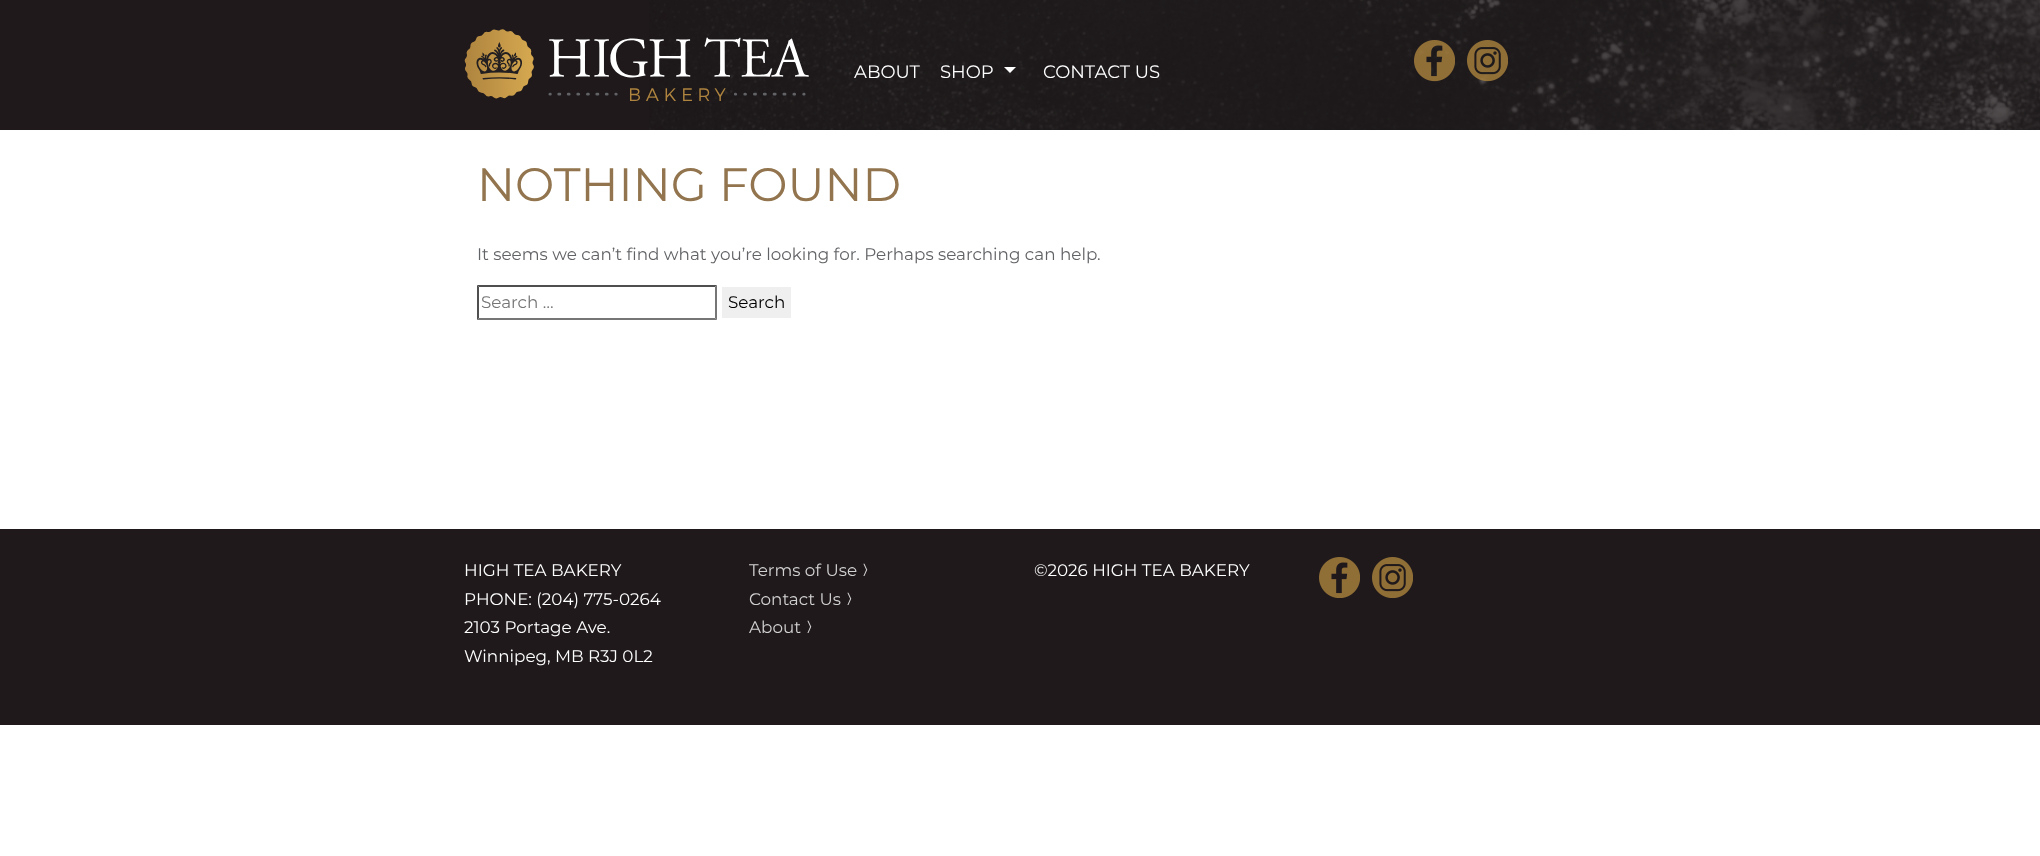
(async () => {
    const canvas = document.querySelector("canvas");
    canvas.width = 2040;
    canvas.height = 856;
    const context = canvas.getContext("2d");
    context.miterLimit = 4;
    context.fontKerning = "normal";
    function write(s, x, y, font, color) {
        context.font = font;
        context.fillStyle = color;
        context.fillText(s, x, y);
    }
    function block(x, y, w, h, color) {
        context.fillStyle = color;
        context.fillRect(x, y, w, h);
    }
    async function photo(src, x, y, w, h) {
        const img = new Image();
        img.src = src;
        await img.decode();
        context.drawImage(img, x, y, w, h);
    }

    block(0, 0, 2040, 856, "rgb(255, 255, 255)");
    block(0, 0, 649, 130, "rgb(31, 25, 27)");
    await photo("media/1.png", 649, 0, 1391, 130);
    await photo("media/2.png", 464, 29, 345, 72);
    write("ABOUT", 854, 78, "18px Montserrat", "rgb(255, 255, 255)");
    write("SHOP", 940, 78, "18px Montserrat", "rgb(255, 255, 255)");
    context.beginPath();
    context.moveTo(1004, 67);
    context.lineTo(1016, 67);
    context.lineTo(1010, 73);
    context.closePath();
    context.fill();
    write("CONTACT US", 1043, 78, "18px Montserrat", "rgb(255, 255, 255)");
    await photo("media/3.png", 1414, 40, 41, 42);
    await photo("media/4.png", 1467, 40, 41, 42);
    write("NOTHING FOUND", 477, 201, "46.75px Montserrat", "rgb(146, 117, 78)");
    write("It seems we can’t find what you’re looking for. Perhaps searching can help.", 477, 260, "16.8px Montserrat", "rgb(98, 99, 102)");
    context.fillStyle = "rgb(79, 79, 79)";
    context.beginPath();
    context.moveTo(477, 285);
    context.lineTo(717, 285);
    context.lineTo(715, 287);
    context.lineTo(479, 287);
    context.closePath();
    context.fill();
    context.fillStyle = "rgb(118, 118, 118)";
    context.beginPath();
    context.moveTo(717, 285);
    context.lineTo(717, 320);
    context.lineTo(715, 318);
    context.lineTo(715, 287);
    context.closePath();
    context.fill();
    context.beginPath();
    context.moveTo(717, 320);
    context.lineTo(477, 320);
    context.lineTo(479, 318);
    context.lineTo(715, 318);
    context.closePath();
    context.fill();
    context.fillStyle = "rgb(79, 79, 79)";
    context.beginPath();
    context.moveTo(477, 320);
    context.lineTo(477, 285);
    context.lineTo(479, 287);
    context.lineTo(479, 318);
    context.closePath();
    context.fill();
    write("Search …", 481, 308, "16.8px Montserrat", "rgb(117, 117, 117)");
    block(722, 287, 69, 31, "rgb(239, 239, 239)");
    write("Search", 728, 308, "16.8px Montserrat", "rgb(0, 0, 0)");
    block(0, 529, 2040, 196, "rgb(31, 25, 27)");
    write("HIGH TEA BAKERY", 464, 576, "16.8px Montserrat", "rgb(255, 255, 255)");
    write("PHONE: (204) 775-0264", 464, 605, "16.8px Montserrat", "rgb(255, 255, 255)");
    write("2103 Portage Ave.", 464, 633, "16.8px Montserrat", "rgb(255, 255, 255)");
    write("Winnipeg, MB R3J 0L2", 464, 662, "16.8px Montserrat", "rgb(255, 255, 255)");
    write("Terms of Use", 749, 576, "16.8px Montserrat", "rgb(210, 209, 209)");
    write("〉", 863, 574, "14px FreeSans", "rgb(210, 209, 209)");
    write("Contact Us", 749, 605, "16.8px Montserrat", "rgb(210, 209, 209)");
    write("〉", 847, 603, "14px FreeSans", "rgb(210, 209, 209)");
    write("About", 749, 633, "16.8px Montserrat", "rgb(210, 209, 209)");
    write("〉", 807, 631, "14px FreeSans", "rgb(210, 209, 209)");
    write("©2026 HIGH TEA BAKERY", 1034, 576, "16.8px Montserrat", "rgb(255, 255, 255)");
    await photo("media/5.png", 1319, 557, 41, 41);
    await photo("media/6.png", 1372, 557, 41, 41);
})();
